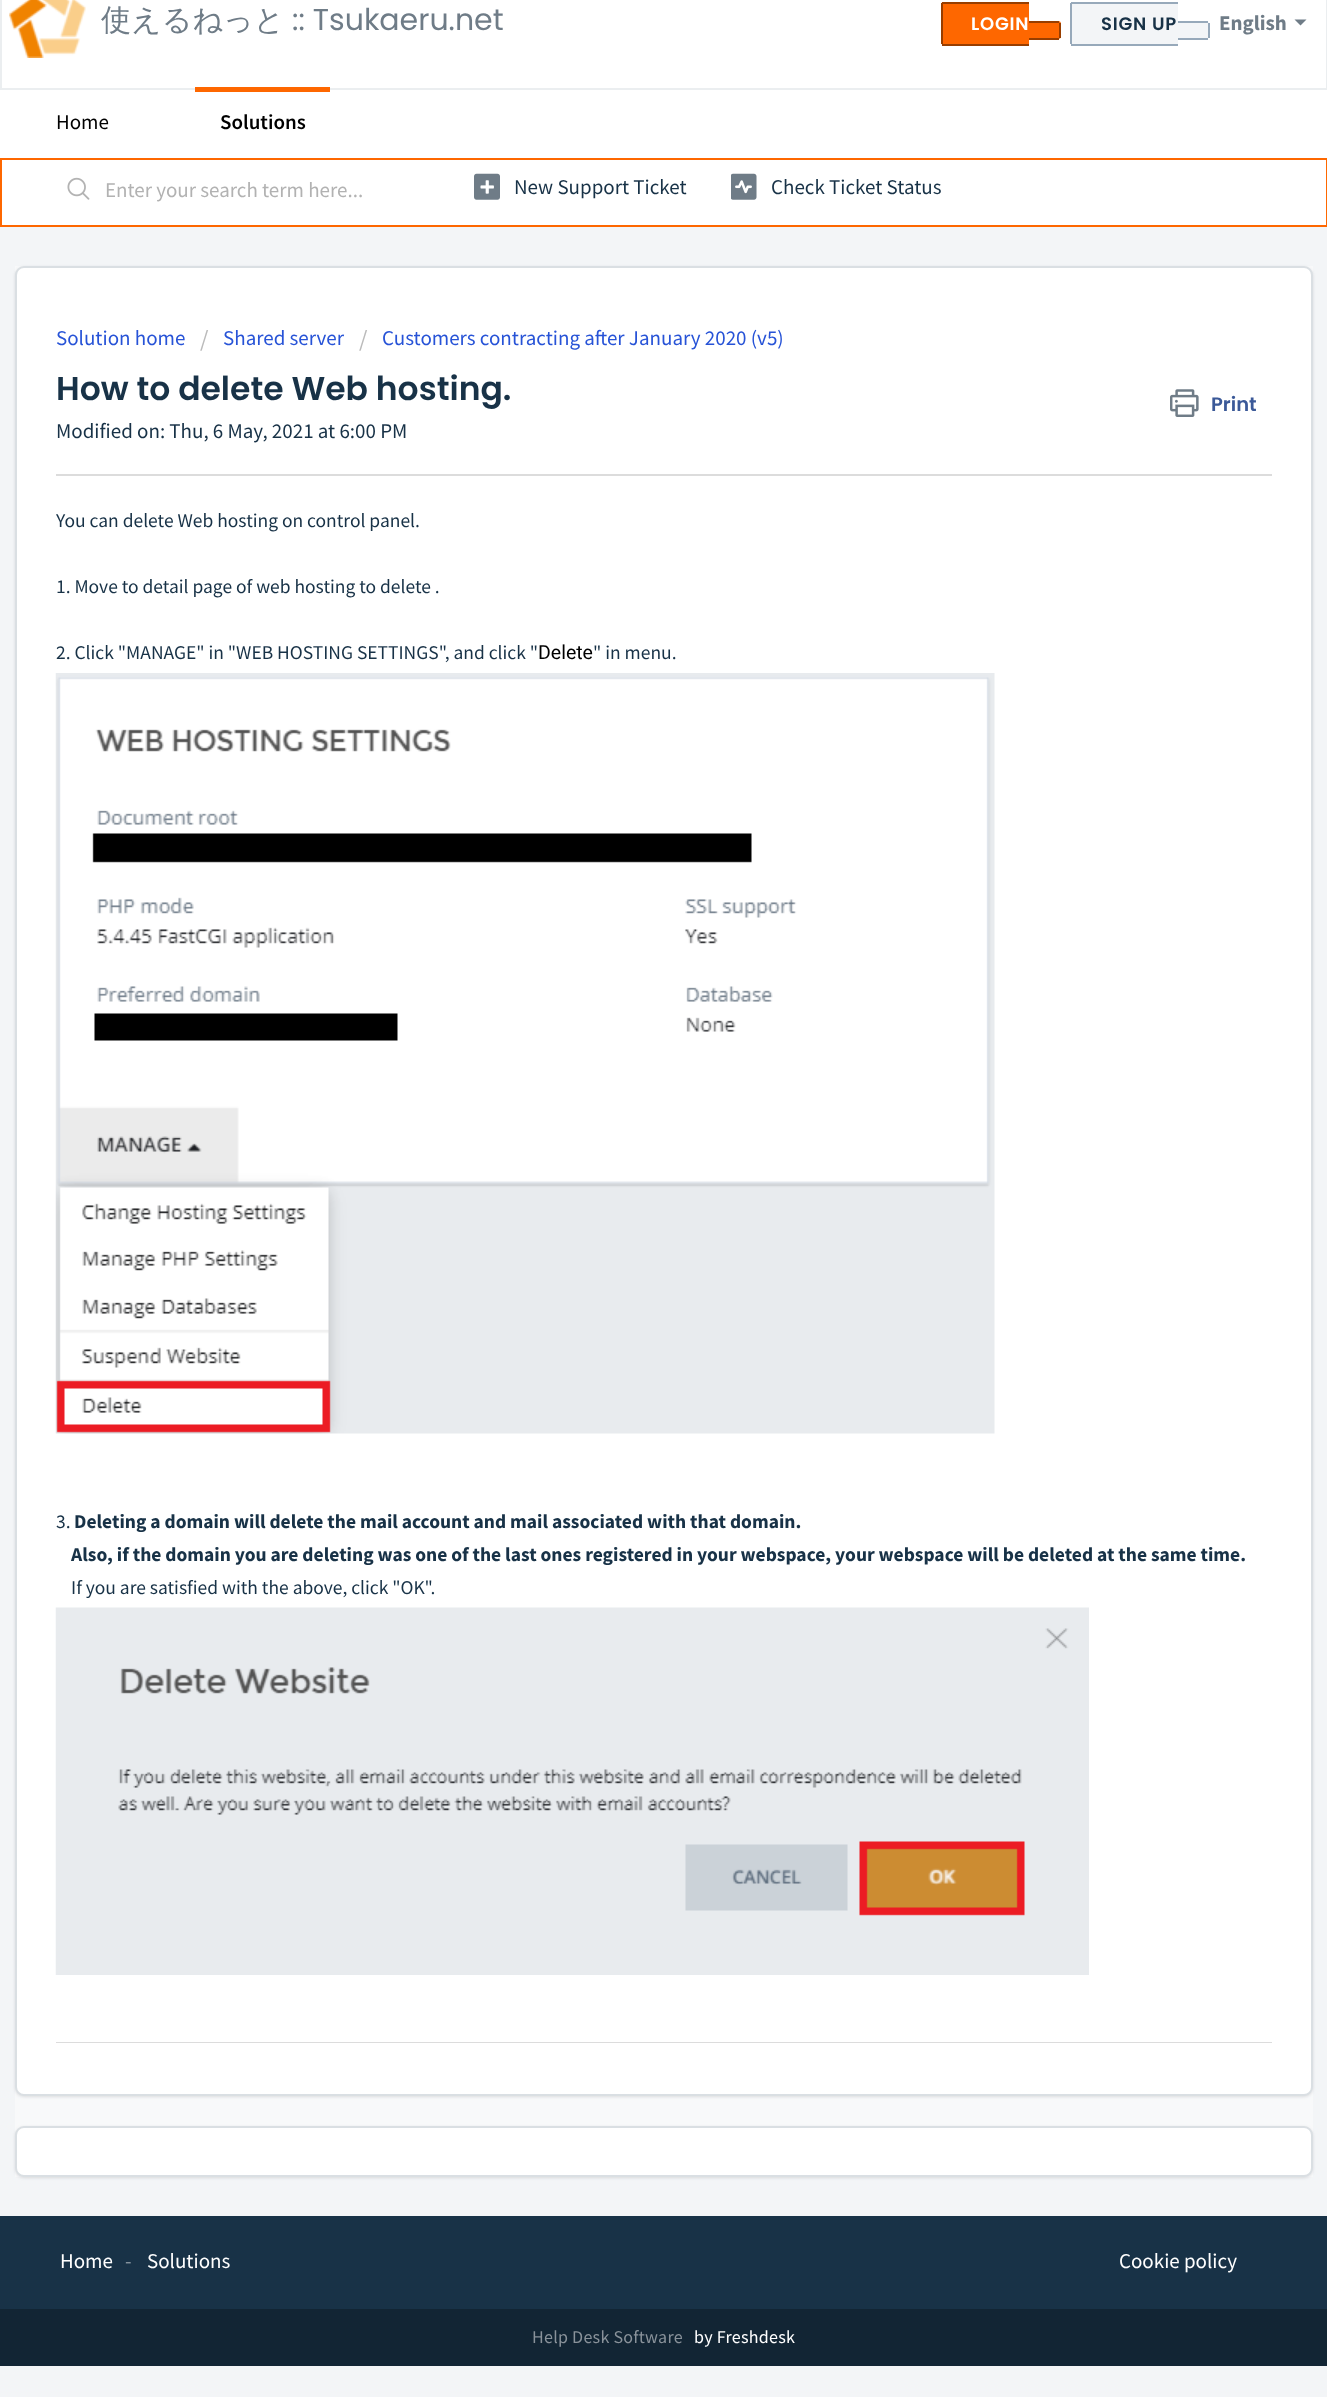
(async () => {
    const canvas = document.querySelector("canvas");
    canvas.width = 1327;
    canvas.height = 2397;
    const context = canvas.getContext("2d");
    context.miterLimit = 4;
    context.fontKerning = "normal";
    function write(s, x, y, font, color) {
        context.font = font;
        context.fillStyle = color;
        context.fillText(s, x, y);
    }
    function block(x, y, w, h, color) {
        context.fillStyle = color;
        context.fillRect(x, y, w, h);
    }
    async function photo(src, x, y, w, h) {
        const img = new Image();
        img.src = src;
        await img.decode();
        context.drawImage(img, x, y, w, h);
    }

    block(0, 0, 1327, 2397, "rgb(243, 245, 247)");
    context.fillStyle = "rgb(255, 255, 255)";
    context.beginPath();
    context.rect(1, -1, 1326, 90);
    context.fill();
    context.strokeStyle = "rgb(235, 238, 240)";
    context.lineWidth = 2;
    context.stroke();
    await photo("media/1.png", 9, 0, 77, 58);
    write("使えるねっと", 101, 30, "500 30px WenQuanYi Zen Hei", "rgb(111, 124, 135)");
    write(":: Tsukaeru.net", 292, 30, "30px Poppins", "rgb(111, 124, 135)");
    context.fillStyle = "rgb(254, 103, 0)";
    context.beginPath();
    context.roundRect(941, 2, 88, 43, [3, 0, 0, 3]);
    context.fill();
    context.letterSpacing = "0.75px";
    write("LOGIN", 971, 30, "600 18px Poppins", "rgb(255, 255, 255)");
    block(942, 2, 87, 2, "rgb(152, 62, 0)");
    block(942, 44, 87, 2, "rgb(152, 62, 0)");
    block(941, 3, 2, 41, "rgb(152, 62, 0)");
    context.fillStyle = "rgb(254, 103, 0)";
    context.beginPath();
    context.roundRect(1029, 21, 32, 18, [0, 3, 3, 0]);
    context.fill();
    block(1029, 21, 30, 2, "rgb(152, 62, 0)");
    block(1059, 23, 2, 15, "rgb(152, 62, 0)");
    block(1029, 38, 30, 2, "rgb(152, 62, 0)");
    context.fillStyle = "rgb(243, 245, 247)";
    context.beginPath();
    context.roundRect(1070, 2, 108, 43, [3, 0, 0, 3]);
    context.fill();
    write("SIGN UP", 1101, 30, "600 18px Poppins", "rgb(24, 50, 71)");
    block(1071, 2, 107, 2, "rgb(151, 169, 186)");
    block(1071, 44, 107, 2, "rgb(151, 169, 186)");
    block(1070, 3, 2, 41, "rgb(151, 169, 186)");
    context.fillStyle = "rgb(243, 245, 247)";
    context.beginPath();
    context.roundRect(1178, 21, 31, 18, [0, 3, 3, 0]);
    context.fill();
    block(1178, 21, 30, 2, "rgb(151, 169, 186)");
    block(1208, 23, 2, 15, "rgb(151, 169, 186)");
    block(1178, 38, 30, 2, "rgb(151, 169, 186)");
    context.letterSpacing = "0px";
    write("English", 1219, 30, "bold 21px Source Sans Pro", "rgb(111, 124, 135)");
    context.beginPath();
    context.moveTo(1294.5, 19.5);
    context.lineTo(1306.5, 19.5);
    context.lineTo(1300.5, 25.5);
    context.closePath();
    context.fill();
    block(0, 90, 1327, 68, "rgb(255, 255, 255)");
    write("Home", 56, 129, "21px Source Sans Pro", "rgb(0, 0, 0)");
    block(195, 87, 135, 5, "rgb(254, 103, 0)");
    write("Solutions", 220, 129, "600 21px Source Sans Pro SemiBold", "rgb(0, 0, 0)");
    context.fillStyle = "rgb(255, 255, 255)";
    context.beginPath();
    context.rect(1, 159, 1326, 67);
    context.fill();
    context.strokeStyle = "rgb(254, 103, 0)";
    context.stroke();
    await photo("media/2.png", 67, 177, 23, 23);
    write("Enter your search term here...", 105, 197, "21px Source Sans Pro", "rgb(178, 178, 178)");
    await photo("media/3.png", 474, 173, 26, 27);
    write("New Support Ticket", 514, 194, "21px Source Sans Pro", "rgb(24, 50, 71)");
    await photo("media/4.png", 731, 173, 26, 27);
    write("Check Ticket Status", 771, 194, "21px Source Sans Pro", "rgb(24, 50, 71)");
    block(15, 266, 1298, 1911, "rgb(248, 249, 250)");
    context.fillStyle = "rgba(63, 63, 68, 0.15)";
    context.filter = "blur(1.5px)";
    context.beginPath();
    context.roundRect(15, 267, 1298, 1830, 9);
    context.fill();
    context.filter = "none";
    context.fillStyle = "rgb(255, 255, 255)";
    context.beginPath();
    context.roundRect(16, 267, 1296, 1828, 8);
    context.fill();
    context.strokeStyle = "rgb(218, 223, 227)";
    context.stroke();
    write("Solution home", 56, 345, "21px Source Sans Pro", "rgb(39, 83, 215)");
    write("/", 200, 347, "24px Source Sans Pro", "rgb(187, 187, 187)");
    write("Shared server", 223, 345, "21px Source Sans Pro", "rgb(39, 83, 215)");
    write("/", 359, 347, "24px Source Sans Pro", "rgb(187, 187, 187)");
    write("Customers contracting after January 2020 (v5)", 382, 345, "21px Source Sans Pro", "rgb(39, 83, 215)");
    write("How to delete Web hosting.", 56, 400, "600 33px Poppins", "rgb(24, 50, 71)");
    await photo("media/5.png", 1170, 389, 29, 28);
    write("Print", 1211, 411, "600 19.5px Poppins", "rgb(59, 89, 152)");
    write("Modified on: Thu, 6 May, 2021 at 6:00 PM", 56, 438, "21px Source Sans Pro", "rgb(24, 50, 71)");
    block(56, 474, 1216, 2, "rgb(220, 220, 220)");
    write("You can delete Web hosting on control panel.", 56, 527, "19.5px Source Sans Pro", "rgb(24, 50, 71)");
    write("1. Move to detail page of web hosting to delete .", 56, 593, "19.5px Source Sans Pro", "rgb(24, 50, 71)");
    write("2. Click \"MANAGE\" in \"WEB HOSTING SETTINGS\", and click \"", 56, 659, "19.5px Source Sans Pro", "rgb(24, 50, 71)");
    write("Delete", 538, 659, "19.5px Roboto", "rgb(0, 0, 0)");
    write("\" in menu.", 593, 659, "19.5px Source Sans Pro", "rgb(24, 50, 71)");
    await photo("media/6.png", 55, 673, 940, 761);
    write("3.", 56, 1528, "19.5px Source Sans Pro", "rgb(24, 50, 71)");
    write("Deleting a domain will delete the mail account and mail associated with that domain.", 74, 1528, "bold 19.5px Source Sans Pro", "rgb(24, 50, 71)");
    write("Also, if the domain you are deleting was one of the last ones registered in your webspace, your webspace will be deleted at the same time.", 71, 1561, "bold 19.5px Source Sans Pro", "rgb(24, 50, 71)");
    write("If you are satisfied with the above, click \"OK\".", 71, 1594, "19.5px Source Sans Pro", "rgb(24, 50, 71)");
    await photo("media/7.png", 55, 1607, 1034, 368);
    block(56, 2042, 1216, 1, "rgb(220, 220, 220)");
    context.fillStyle = "rgba(63, 63, 68, 0.15)";
    context.filter = "blur(1.5px)";
    context.beginPath();
    context.roundRect(15, 2127, 1298, 51, 9);
    context.fill();
    context.filter = "none";
    context.fillStyle = "rgb(255, 255, 255)";
    context.beginPath();
    context.roundRect(16, 2127, 1296, 49, 8);
    context.fill();
    context.stroke();
    block(0, 2216, 1327, 93, "rgb(24, 50, 71)");
    write("Home", 60, 2268, "21px Source Sans Pro", "rgb(255, 255, 255)");
    write("-", 125, 2268, "21px Source Sans Pro", "rgb(140, 153, 163)");
    write("Solutions", 147, 2268, "21px Source Sans Pro", "rgb(255, 255, 255)");
    write("Cookie policy", 1119, 2268, "21px Source Sans Pro", "rgb(255, 255, 255)");
    block(0, 2309, 1327, 57, "rgb(18, 37, 52)");
    context.letterSpacing = "0.25px";
    write("Help Desk Software", 532, 2343, "18px Source Sans Pro", "rgb(137, 146, 154)");
    write("by Freshdesk", 694, 2343, "18px Source Sans Pro", "rgb(255, 255, 255)");
})();
